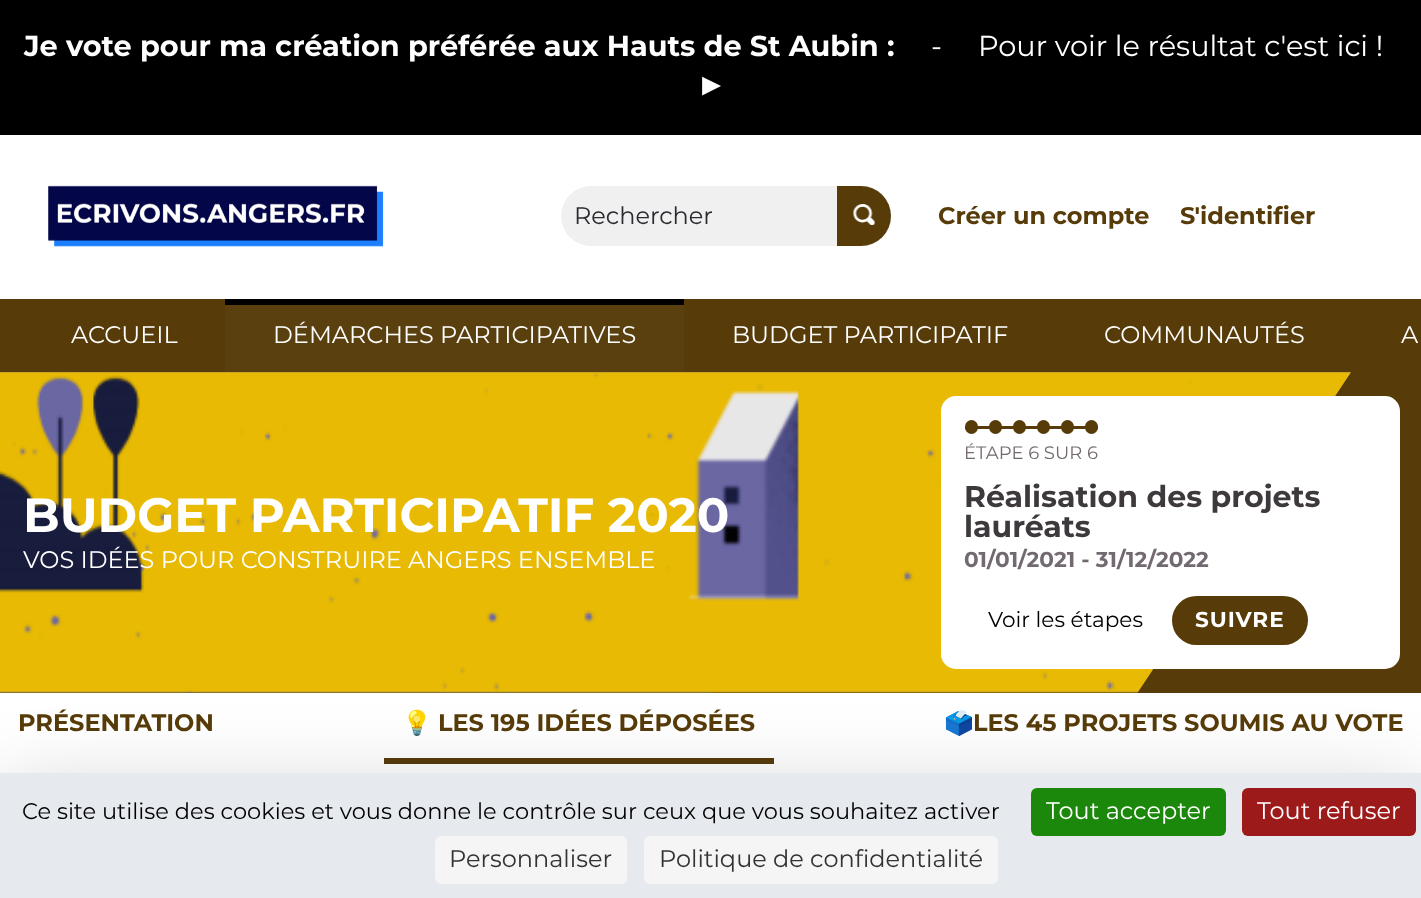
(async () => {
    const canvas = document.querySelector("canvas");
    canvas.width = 1421;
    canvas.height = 898;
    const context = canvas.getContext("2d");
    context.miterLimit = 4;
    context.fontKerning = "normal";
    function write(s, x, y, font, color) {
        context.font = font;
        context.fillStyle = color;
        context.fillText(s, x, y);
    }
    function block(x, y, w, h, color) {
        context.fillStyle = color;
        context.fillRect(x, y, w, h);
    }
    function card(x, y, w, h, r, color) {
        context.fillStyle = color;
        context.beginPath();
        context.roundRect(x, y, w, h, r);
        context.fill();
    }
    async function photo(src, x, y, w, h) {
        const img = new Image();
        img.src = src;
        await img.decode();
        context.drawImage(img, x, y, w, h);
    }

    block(0, 0, 1421, 898, "rgb(0, 0, 0)");
    write("Je vote pour ma création préférée aux Hauts de St Aubin :", 24, 56, "bold 28.8px Montserrat", "rgb(255, 255, 255)");
    write("-", 931, 56, "28.8px Montserrat", "rgb(255, 255, 255)");
    write("Pour voir le résultat c'est ici !", 978, 56, "28.8px Montserrat", "rgb(255, 255, 255)");
    await photo("media/1.png", 702, 76, 19, 20);
    block(0, 135, 1421, 164, "rgb(255, 255, 255)");
    await photo("media/2.png", 48, 185, 336, 62);
    context.fillStyle = "rgb(240, 240, 240)";
    context.beginPath();
    context.roundRect(561, 186, 276, 60, [30, 0, 0, 30]);
    context.fill();
    write("Rechercher", 574, 224, "24px Montserrat", "rgb(44, 41, 48)");
    context.fillStyle = "rgb(87, 60, 10)";
    context.beginPath();
    context.roundRect(837, 186, 54, 60, [0, 30, 30, 0]);
    context.fill();
    await photo("media/3.png", 853, 204, 22, 21);
    write("Créer un compte", 938, 224, "bold 24px Montserrat", "rgb(87, 60, 10)");
    write("S'identifier", 1180, 224, "bold 24px Montserrat", "rgb(87, 60, 10)");
    block(0, 299, 1421, 73, "rgb(87, 60, 10)");
    write("ACCUEIL", 71, 343, "24px Montserrat", "rgb(255, 255, 255)");
    block(225, 305, 459, 67, "rgb(90, 64, 15)");
    block(225, 299, 459, 6, "rgb(0, 0, 0)");
    write("DÉMARCHES PARTICIPATIVES", 273, 343, "24px Montserrat", "rgb(255, 255, 255)");
    write("BUDGET PARTICIPATIF", 732, 343, "24px Montserrat", "rgb(255, 255, 255)");
    write("COMMUNAUTÉS", 1104, 343, "24px Montserrat", "rgb(255, 255, 255)");
    write("A", 1401, 343, "24px Montserrat", "rgb(255, 255, 255)");
    block(0, 692, 711, 1, "rgb(71, 69, 73)");
    block(711, 372, 710, 321, "rgb(87, 60, 10)");
    context.fillStyle = "rgb(120, 111, 131)";
    context.beginPath();
    context.moveTo(0, 372);
    context.lineTo(0, 692);
    context.lineTo(1138, 692);
    context.lineTo(1351, 372);
    context.closePath();
    context.fill();
    await photo("media/4.png", 0, 372, 1351, 321);
    context.fillStyle = "rgba(26, 24, 29, 0.1)";
    context.beginPath();
    context.moveTo(0, 372);
    context.lineTo(0, 692);
    context.lineTo(1138, 692);
    context.lineTo(1351, 372);
    context.closePath();
    context.fill();
    write("BUDGET PARTICIPATIF 2020", 23, 532, "bold 48px Montserrat", "rgb(255, 255, 255)");
    write("VOS IDÉES POUR CONSTRUIRE ANGERS ENSEMBLE", 23, 568, "24px Montserrat", "rgb(255, 255, 255)");
    card(941, 396, 459, 273, 15, "rgb(255, 255, 255)");
    card(965, 420, 13, 14, 6.5, "rgb(87, 60, 10)");
    block(965, 426, 13, 3, "rgb(87, 60, 10)");
    card(989, 420, 13, 14, 6.5, "rgb(87, 60, 10)");
    block(978, 426, 24, 3, "rgb(87, 60, 10)");
    card(1013, 420, 13, 14, 6.5, "rgb(87, 60, 10)");
    block(1002, 426, 24, 3, "rgb(87, 60, 10)");
    card(1037, 420, 13, 14, 6.5, "rgb(87, 60, 10)");
    block(1026, 426, 24, 3, "rgb(87, 60, 10)");
    card(1061, 420, 13, 14, 6.5, "rgb(87, 60, 10)");
    block(1050, 426, 24, 3, "rgb(87, 60, 10)");
    card(1085, 420, 13, 14, 6.5, "rgb(87, 60, 10)");
    block(1074, 426, 24, 3, "rgb(87, 60, 10)");
    write("ÉTAPE 6 SUR 6", 964, 459, "18px Montserrat", "rgb(114, 106, 112)");
    write("Réalisation des projets", 964, 507, "bold 30px Montserrat", "rgb(61, 57, 60)");
    write("lauréats", 964, 537, "bold 30px Montserrat", "rgb(61, 57, 60)");
    write("01/01/2021 - 31/12/2022", 964, 567, "bold 21.6px Montserrat", "rgb(114, 106, 112)");
    write("Voir les étapes", 988, 627, "21.6px Montserrat", "rgb(0, 0, 0)");
    card(1172, 596, 136, 49, 24.5, "rgb(87, 60, 10)");
    context.letterSpacing = "1px";
    write("SUIVRE", 1195, 627, "bold 21.6px Montserrat", "rgb(255, 255, 255)");
    block(0, 693, 1421, 80, "rgb(255, 255, 255)");
    context.letterSpacing = "0px";
    write("PRÉSENTATION", 18, 731, "bold 24px Montserrat", "rgb(87, 60, 10)");
    block(384, 758, 390, 6, "rgb(87, 60, 10)");
    write("💡", 402, 731, "bold 24px Noto Color Emoji", "rgb(87, 60, 10)");
    write("LES 195 IDÉES DÉPOSÉES", 438, 731, "bold 24px Montserrat", "rgb(87, 60, 10)");
    write("🗳️", 944, 731, "bold 24px Noto Color Emoji", "rgb(87, 60, 10)");
    write("LES 45 PROJETS SOUMIS AU VOTE", 973, 731, "bold 24px Montserrat", "rgb(87, 60, 10)");
    context.fillStyle = "rgba(0, 0, 0, 0.25)";
    context.filter = "blur(45px)";
    context.beginPath();
    context.rect(0, 803, 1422, 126);
    context.fill();
    context.filter = "none";
    block(0, 773, 1421, 125, "rgb(230, 234, 238)");
    write("Ce site utilise des cookies et vous donne le contrôle sur ceux que vous souhaitez activer", 22, 819, "22.5px Montserrat", "rgb(0, 0, 0)");
    card(1031, 788, 195, 48, 6, "rgb(27, 135, 11)");
    write("Tout accepter", 1046, 819, "24px Montserrat", "rgb(255, 255, 255)");
    card(1242, 788, 174, 48, 6, "rgb(156, 26, 26)");
    write("Tout refuser", 1257, 819, "24px Montserrat", "rgb(255, 255, 255)");
    card(435, 836, 192, 48, 6, "rgb(245, 245, 245)");
    write("Personnaliser", 449, 867, "24px Montserrat", "rgb(51, 51, 51)");
    card(644, 836, 354, 48, 6, "rgb(245, 245, 245)");
    write("Politique de confidentialité", 659, 867, "24px Montserrat", "rgb(51, 51, 51)");
})();
